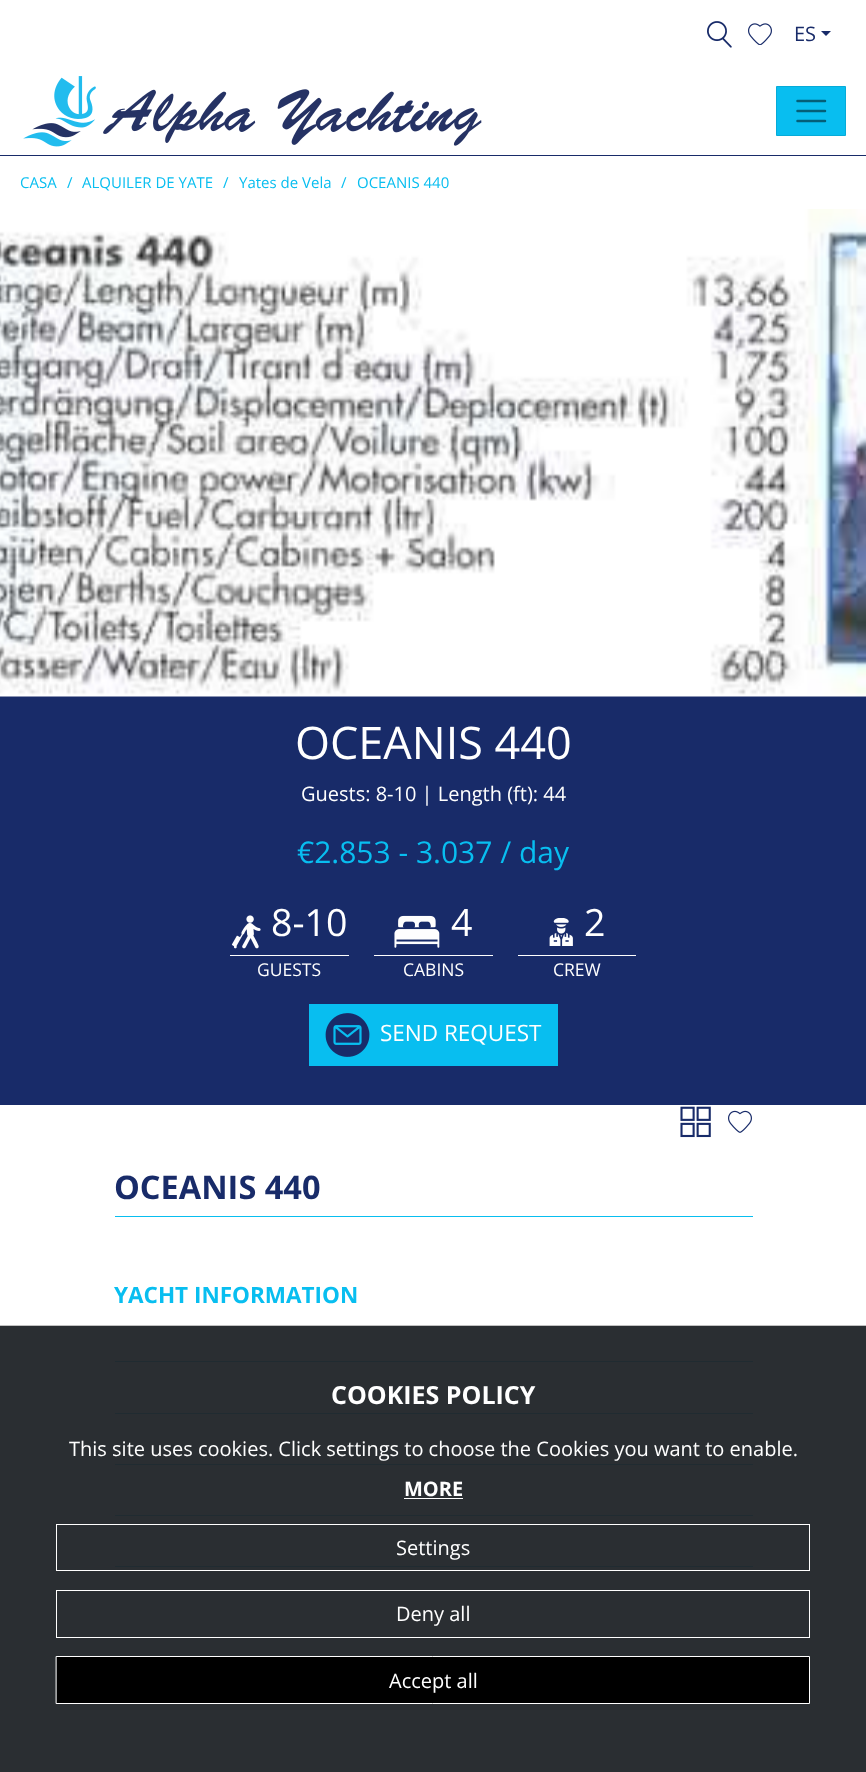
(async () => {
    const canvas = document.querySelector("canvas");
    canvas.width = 866;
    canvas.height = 1772;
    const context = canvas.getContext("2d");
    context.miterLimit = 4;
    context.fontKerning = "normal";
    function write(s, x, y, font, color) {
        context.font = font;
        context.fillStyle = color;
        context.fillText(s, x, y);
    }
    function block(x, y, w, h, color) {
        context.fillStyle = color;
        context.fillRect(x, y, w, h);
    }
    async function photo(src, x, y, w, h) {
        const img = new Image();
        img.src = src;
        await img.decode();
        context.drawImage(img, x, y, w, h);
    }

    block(0, 0, 866, 1772, "rgb(255, 255, 255)");
    block(0, 1326, 866, 446, "rgb(42, 46, 50)");
    await photo("media/1.png", 707, 21, 25, 27);
    await photo("media/2.png", 748, 23, 24, 22);
    write("ES", 794, 41, "20px Open Sans", "rgb(24, 43, 105)");
    context.beginPath();
    context.moveTo(821, 31);
    context.lineTo(831, 31);
    context.lineTo(826, 36);
    context.closePath();
    context.fill();
    block(0, 155, 866, 1, "rgb(24, 43, 105)");
    await photo("media/3.png", 23, 76, 459, 71);
    context.fillStyle = "rgb(8, 190, 240)";
    context.beginPath();
    context.rect(776.5, 86.5, 69, 49);
    context.fill();
    context.strokeStyle = "rgb(7, 171, 216)";
    context.stroke();
    context.beginPath();
    context.moveTo(797.5, 101);
    context.lineTo(825, 101);
    context.moveTo(797.5, 111);
    context.lineTo(825, 111);
    context.moveTo(797.5, 121);
    context.lineTo(825, 121);
    context.strokeStyle = "rgb(4, 95, 120)";
    context.lineWidth = 2.5;
    context.lineCap = "round";
    context.stroke();
    write("CASA", 20, 188, "15px Open Sans", "rgb(8, 190, 240)");
    write("/", 67, 188, "15px Open Sans", "rgb(8, 190, 240)");
    write("ALQUILER DE YATE", 82, 188, "15px Open Sans", "rgb(8, 190, 240)");
    write("/", 223, 188, "15px Open Sans", "rgb(8, 190, 240)");
    write("Yates de Vela", 239, 188, "15px Open Sans", "rgb(8, 190, 240)");
    write("/", 341, 188, "15px Open Sans", "rgb(8, 190, 240)");
    write("OCEANIS 440", 357, 188, "15px Open Sans", "rgb(8, 190, 240)");
    block(0, 696, 866, 409, "rgb(24, 43, 105)");
    await photo("media/4.png", 0, 209, 866, 488);
    write("OCEANIS 440", 295, 759, "45px Open Sans", "rgb(255, 255, 255)");
    write("Guests: 8-10 | Length (ft): 44", 301, 801, "20px Open Sans", "rgb(255, 255, 255)");
    write("€2.853 - 3.037 / day", 297, 863, "30px Open Sans", "rgb(8, 190, 240)");
    await photo("media/5.png", 231, 915, 30, 34);
    write("8-10", 271, 936, "37.5px Open Sans", "rgb(255, 255, 255)");
    block(230, 955, 119, 1, "rgb(255, 255, 255)");
    write("GUESTS", 257, 976, "17.5px Open Sans", "rgb(255, 255, 255)");
    await photo("media/6.png", 394, 915, 46, 33);
    write("4", 451, 936, "37.5px Open Sans", "rgb(255, 255, 255)");
    block(374, 955, 119, 1, "rgb(255, 255, 255)");
    write("CABINS", 403, 976, "17.5px Open Sans", "rgb(255, 255, 255)");
    await photo("media/7.png", 549, 918, 24, 28);
    write("2", 584, 936, "37.5px Open Sans", "rgb(255, 255, 255)");
    block(518, 955, 118, 1, "rgb(255, 255, 255)");
    write("CREW", 553, 976, "17.5px Open Sans", "rgb(255, 255, 255)");
    block(309, 1004, 249, 62, "rgb(8, 190, 240)");
    await photo("media/8.png", 325, 1013, 45, 44);
    write("SEND REQUEST", 380, 1041, "22.5px Open Sans", "rgb(255, 255, 255)");
    await photo("media/9.png", 680, 1106, 31, 32);
    await photo("media/10.png", 728, 1110, 24, 23);
    write("OCEANIS 440", 114, 1199, "bold 32.5px Open Sans", "rgb(24, 43, 105)");
    block(115, 1216, 638, 1, "rgb(8, 190, 240)");
    write("YACHT INFORMATION", 114, 1303, "bold 22.5px Open Sans", "rgb(8, 190, 240)");
    block(115, 1361, 638, 1, "rgb(32, 43, 49)");
    block(115, 1413, 638, 1, "rgb(32, 43, 49)");
    block(115, 1464, 638, 1, "rgb(32, 43, 49)");
    block(115, 1515, 638, 1, "rgb(32, 43, 49)");
    block(115, 1566, 638, 1, "rgb(32, 43, 49)");
    block(0, 1325, 866, 1, "rgb(193, 193, 193)");
    write("COOKIES POLICY", 331, 1404, "bold 25px Open Sans", "rgb(255, 255, 255)");
    write("This site uses cookies. Click settings to choose the Cookies you want to enable.", 69, 1456, "20px Open Sans", "rgb(255, 255, 255)");
    write("MORE", 404, 1496, "bold 20px Open Sans", "rgb(255, 255, 255)");
    block(404, 1498, 59, 1, "rgb(255, 255, 255)");
    context.strokeStyle = "rgb(255, 255, 255)";
    context.lineWidth = 1;
    context.strokeRect(56.5, 1524.5, 753, 46);
    write("Settings", 396, 1555, "20px Open Sans", "rgb(255, 255, 255)");
    context.strokeRect(56.5, 1590.5, 753, 47);
    write("Deny all", 396, 1621, "20px Open Sans", "rgb(255, 255, 255)");
    context.fillStyle = "rgb(0, 0, 0)";
    context.beginPath();
    context.rect(56.5, 1656.5, 753, 47);
    context.fill();
    context.stroke();
    write("Accept all", 389, 1688, "20px Open Sans", "rgb(255, 255, 255)");
})();
